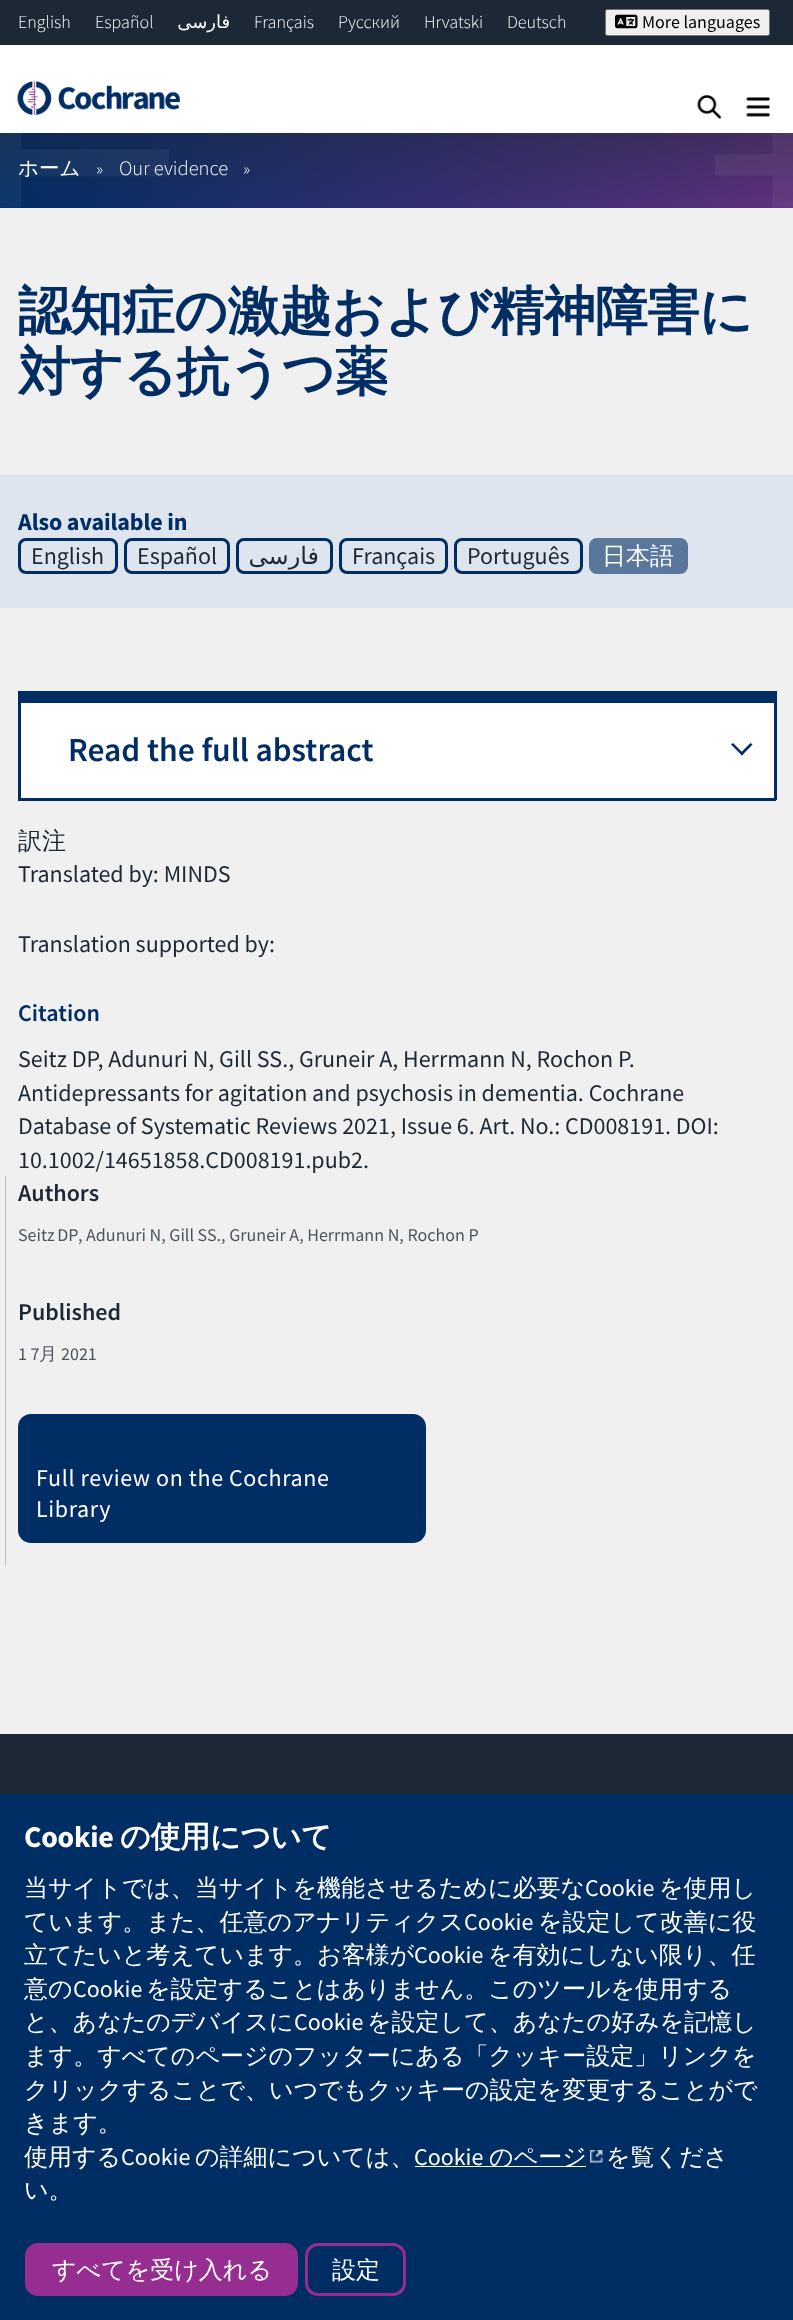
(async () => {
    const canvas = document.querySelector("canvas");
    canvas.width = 793;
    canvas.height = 2320;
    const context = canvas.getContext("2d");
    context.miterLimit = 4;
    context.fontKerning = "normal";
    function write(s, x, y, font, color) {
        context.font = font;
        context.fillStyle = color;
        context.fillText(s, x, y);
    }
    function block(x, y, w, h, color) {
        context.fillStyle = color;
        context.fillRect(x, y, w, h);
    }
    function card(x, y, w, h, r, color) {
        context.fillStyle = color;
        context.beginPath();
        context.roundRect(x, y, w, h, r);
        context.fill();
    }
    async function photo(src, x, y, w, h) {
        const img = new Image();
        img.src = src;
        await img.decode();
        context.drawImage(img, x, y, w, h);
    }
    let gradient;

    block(0, 0, 793, 2320, "rgb(240, 240, 240)");
    block(0, 0, 793, 45, "rgb(28, 40, 54)");
    block(0, 45, 793, 88, "rgb(255, 255, 255)");
    write("English", 18, 28, "300 18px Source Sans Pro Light", "rgb(255, 255, 255)");
    write("Español", 95, 28, "300 18px Source Sans Pro Light", "rgb(255, 255, 255)");
    context.direction = "rtl";
    write("فارسی", 230, 28, "18px DejaVu Sans", "rgb(255, 255, 255)");
    context.direction = "ltr";
    write("Français", 254, 28, "300 18px Source Sans Pro Light", "rgb(255, 255, 255)");
    write("Русский", 338, 28, "300 18px Source Sans Pro Light", "rgb(255, 255, 255)");
    write("Hrvatski", 424, 28, "300 18px Source Sans Pro Light", "rgb(255, 255, 255)");
    write("Deutsch", 507, 28, "300 18px Source Sans Pro Light", "rgb(255, 255, 255)");
    context.fillStyle = "rgb(239, 239, 239)";
    context.beginPath();
    context.roundRect(605.5, 9.5, 164, 26, 2);
    context.fill();
    context.strokeStyle = "rgb(118, 118, 118)";
    context.stroke();
    await photo("media/1.png", 615, 14, 23, 15);
    write("More languages", 642, 28, "18px Source Sans Pro", "rgb(0, 0, 0)");
    await photo("media/2.png", 17, 81, 163, 34);
    await photo("media/3.png", 697, 95, 25, 24);
    await photo("media/4.png", 746, 97, 24, 20);
    gradient = context.createLinearGradient(0, 170, 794, 170);
    gradient.addColorStop(0, "rgb(0, 45, 100)");
    gradient.addColorStop(1, "rgb(95, 48, 125)");
    context.fillStyle = gradient;
    context.fillRect(0, 133, 793, 75);
    gradient = context.createLinearGradient(397, 12, 397, 208);
    gradient.addColorStop(0, "rgb(28, 40, 54)");
    gradient.addColorStop(1, "rgba(28, 40, 54, 0)");
    context.fillStyle = gradient;
    context.fillRect(0, 133, 793, 68);
    await photo("media/5.png", 0, 133, 169, 75);
    await photo("media/6.png", 715, 133, 78, 75);
    write("ホーム", 18, 175, "500 20.5px WenQuanYi Zen Hei", "rgb(255, 255, 255)");
    write("»", 96, 175, "300 18px Source Sans Pro Light", "rgb(255, 255, 255)");
    write("Our evidence", 119, 175, "300 20.5px Source Sans Pro Light", "rgb(255, 255, 255)");
    write("»", 243, 175, "300 18px Source Sans Pro Light", "rgb(255, 255, 255)");
    context.letterSpacing = "-0.75px";
    write("認知症の激越および精神障害に", 18, 329, "bold 52.75px WenQuanYi Zen Hei", "rgb(0, 45, 100)");
    write("対する抗うつ薬", 18, 390, "bold 52.75px WenQuanYi Zen Hei", "rgb(0, 45, 100)");
    block(0, 475, 793, 133, "rgb(222, 229, 238)");
    context.letterSpacing = "-0.1px";
    write("Also available in", 18, 530, "bold 24px Source Sans Pro", "rgb(0, 45, 100)");
    context.beginPath();
    context.roundRect(19.5, 539.5, 97, 33, 6.5);
    context.strokeStyle = "rgb(0, 45, 100)";
    context.lineWidth = 3;
    context.stroke();
    context.letterSpacing = "0px";
    write("English", 31, 564, "24px Source Sans Pro", "rgb(28, 40, 54)");
    context.beginPath();
    context.roundRect(125.5, 539.5, 103, 33, 6.5);
    context.stroke();
    write("Español", 137, 564, "24px Source Sans Pro", "rgb(28, 40, 54)");
    context.beginPath();
    context.roundRect(237.5, 539.5, 94, 33, 6.5);
    context.stroke();
    context.direction = "rtl";
    write("فارسی", 319, 564, "24px DejaVu Sans", "rgb(28, 40, 54)");
    context.beginPath();
    context.roundRect(340.5, 539.5, 106, 33, 6.5);
    context.stroke();
    context.direction = "ltr";
    write("Français", 352, 564, "24px Source Sans Pro", "rgb(28, 40, 54)");
    context.beginPath();
    context.roundRect(455.5, 539.5, 126, 33, 6.5);
    context.stroke();
    write("Português", 467, 564, "24px Source Sans Pro", "rgb(28, 40, 54)");
    card(589, 538, 99, 36, 8, "rgb(89, 119, 155)");
    write("日本語", 602, 564, "500 24px WenQuanYi Zen Hei", "rgb(255, 255, 255)");
    block(21, 703, 753, 95, "rgb(255, 255, 255)");
    block(21, 691, 753, 12, "rgb(0, 45, 100)");
    block(774, 691, 3, 109, "rgb(0, 45, 100)");
    block(18, 798, 758, 3, "rgb(0, 45, 100)");
    block(18, 691, 3, 109, "rgb(0, 45, 100)");
    write("Read the full abstract", 68, 761, "600 33.5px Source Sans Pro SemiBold", "rgb(0, 45, 100)");
    context.beginPath();
    context.moveTo(750.5, 743);
    context.lineTo(752.5, 744.5);
    context.lineTo(742, 755.5);
    context.lineTo(740, 753.5);
    context.closePath();
    context.fill();
    context.beginPath();
    context.moveTo(733, 743);
    context.lineTo(743.5, 753.5);
    context.lineTo(742, 755.5);
    context.lineTo(731, 744.5);
    context.closePath();
    context.fill();
    write("訳注", 18, 849, "500 24px WenQuanYi Zen Hei", "rgb(28, 40, 54)");
    write("Translated by: MINDS", 18, 882, "24px Source Sans Pro", "rgb(28, 40, 54)");
    write("Translation supported by:", 18, 952, "24px Source Sans Pro", "rgb(28, 40, 54)");
    write("Citation", 18, 1021, "600 24px Source Sans Pro SemiBold", "rgb(0, 45, 100)");
    write("Seitz DP, Adunuri N, Gill SS., Gruneir A, Herrmann N, Rochon P.", 18, 1067, "24px Source Sans Pro", "rgb(28, 40, 54)");
    write("Antidepressants for agitation and psychosis in dementia. Cochrane", 18, 1101, "24px Source Sans Pro", "rgb(28, 40, 54)");
    write("Database of Systematic Reviews 2021, Issue 6. Art. No.: CD008191. DOI:", 18, 1134, "24px Source Sans Pro", "rgb(28, 40, 54)");
    write("10.1002/14651858.CD008191.pub2.", 18, 1168, "24px Source Sans Pro", "rgb(28, 40, 54)");
    block(5, 1176, 1, 390, "rgb(192, 192, 192)");
    write("Authors", 18, 1201, "600 24px Source Sans Pro SemiBold", "rgb(28, 40, 54)");
    context.wordSpacing = "-1px";
    write("Seitz DP", 18, 1241, "18px Source Sans Pro", "rgb(76, 85, 96)");
    context.wordSpacing = "0px";
    write(", Adunuri N, Gill SS., Gruneir A, Herrmann N, Rochon P", 78, 1241, "18px Source Sans Pro", "rgb(76, 85, 96)");
    write("Published", 18, 1320, "600 24px Source Sans Pro SemiBold", "rgb(28, 40, 54)");
    write("1 7", 18, 1360, "18px Source Sans Pro", "rgb(76, 85, 96)");
    write("月", 39, 1360, "500 18px WenQuanYi Zen Hei", "rgb(76, 85, 96)");
    write("2021", 61, 1360, "18px Source Sans Pro", "rgb(76, 85, 96)");
    gradient = context.createLinearGradient(292, 1139, 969, 1817);
    gradient.addColorStop(0.2, "rgb(0, 45, 100)");
    gradient.addColorStop(0.5, "rgb(0, 45, 100)");
    gradient.addColorStop(0.5, "rgb(0, 22, 49)");
    gradient.addColorStop(0.75, "rgb(0, 22, 49)");
    gradient.addColorStop(0.95, "rgb(0, 0, 0)");
    context.fillStyle = gradient;
    context.beginPath();
    context.roundRect(18, 1414, 408, 129, 13);
    context.fill();
    context.letterSpacing = "0.6px";
    write("Full review on the Cochrane", 36, 1486, "24px Source Sans Pro", "rgb(255, 255, 255)");
    write("Library", 36, 1517, "24px Source Sans Pro", "rgb(255, 255, 255)");
    block(0, 1734, 793, 60, "rgb(28, 40, 54)");
    block(0, 1794, 793, 526, "rgb(0, 45, 100)");
    context.letterSpacing = "-0.25px";
    write("Cookie", 24, 1847, "bold 30px Source Sans Pro", "rgb(255, 255, 255)");
    write("の使用について", 120, 1847, "bold 30px WenQuanYi Zen Hei", "rgb(255, 255, 255)");
    context.letterSpacing = "0px";
    write("当サイトでは、当サイトを機能させるために必要な", 24, 1896, "500 24px WenQuanYi Zen Hei", "rgb(255, 255, 255)");
    write("Cookie", 585, 1896, "24px Source Sans Pro", "rgb(255, 255, 255)");
    write("を使用し", 659, 1896, "500 24px WenQuanYi Zen Hei", "rgb(255, 255, 255)");
    write("ています。また、任意のアナリティクス", 24, 1930, "500 24px WenQuanYi Zen Hei", "rgb(255, 255, 255)");
    write("Cookie", 464, 1930, "24px Source Sans Pro", "rgb(255, 255, 255)");
    write("を設定して改善に役", 538, 1930, "500 24px WenQuanYi Zen Hei", "rgb(255, 255, 255)");
    write("立てたいと考えています。お客様が", 24, 1963, "500 24px WenQuanYi Zen Hei", "rgb(255, 255, 255)");
    write("Cookie", 414, 1963, "24px Source Sans Pro", "rgb(255, 255, 255)");
    write("を有効にしない限り、任", 488, 1963, "500 24px WenQuanYi Zen Hei", "rgb(255, 255, 255)");
    write("意の", 24, 1997, "500 24px WenQuanYi Zen Hei", "rgb(255, 255, 255)");
    write("Cookie", 73, 1997, "24px Source Sans Pro", "rgb(255, 255, 255)");
    write("を設定することはありません。このツールを使用する", 146, 1997, "500 24px WenQuanYi Zen Hei", "rgb(255, 255, 255)");
    write("と、あなたのデバイスに", 24, 2030, "500 24px WenQuanYi Zen Hei", "rgb(255, 255, 255)");
    write("Cookie", 294, 2030, "24px Source Sans Pro", "rgb(255, 255, 255)");
    write("を設定して、あなたの好みを記憶し", 367, 2030, "500 24px WenQuanYi Zen Hei", "rgb(255, 255, 255)");
    write("ます。すべてのページのフッターにある「クッキー設定」リンクを", 24, 2064, "500 24px WenQuanYi Zen Hei", "rgb(255, 255, 255)");
    write("クリックすることで、いつでもクッキーの設定を変更することがで", 24, 2098, "500 24px WenQuanYi Zen Hei", "rgb(255, 255, 255)");
    write("きます。", 24, 2131, "500 24px WenQuanYi Zen Hei", "rgb(255, 255, 255)");
    write("使用する", 24, 2165, "500 24px WenQuanYi Zen Hei", "rgb(255, 255, 255)");
    write("Cookie", 121, 2165, "24px Source Sans Pro", "rgb(255, 255, 255)");
    write("の詳細については、", 195, 2165, "500 24px WenQuanYi Zen Hei", "rgb(255, 255, 255)");
    write("Cookie", 414, 2165, "24px Source Sans Pro", "rgb(255, 255, 255)");
    block(415, 2166, 171, 1, "rgb(255, 255, 255)");
    write("のページ", 489, 2165, "500 24px WenQuanYi Zen Hei", "rgb(255, 255, 255)");
    await photo("media/7.png", 590, 2150, 13, 13);
    write("を覧くださ", 606, 2165, "500 24px WenQuanYi Zen Hei", "rgb(255, 255, 255)");
    write("い。", 24, 2198, "500 24px WenQuanYi Zen Hei", "rgb(255, 255, 255)");
    context.fillStyle = "rgb(150, 45, 145)";
    context.beginPath();
    context.roundRect(26.5, 2244.5, 270, 50, 11.5);
    context.fill();
    context.strokeStyle = "rgb(150, 45, 145)";
    context.stroke();
    write("すべてを受け入れる", 52, 2278, "500 24px WenQuanYi Zen Hei", "rgb(255, 255, 255)");
    context.beginPath();
    context.roundRect(306.5, 2244.5, 98, 50, 11.5);
    context.stroke();
    write("設定", 332, 2278, "500 24px WenQuanYi Zen Hei", "rgb(255, 255, 255)");
})();
